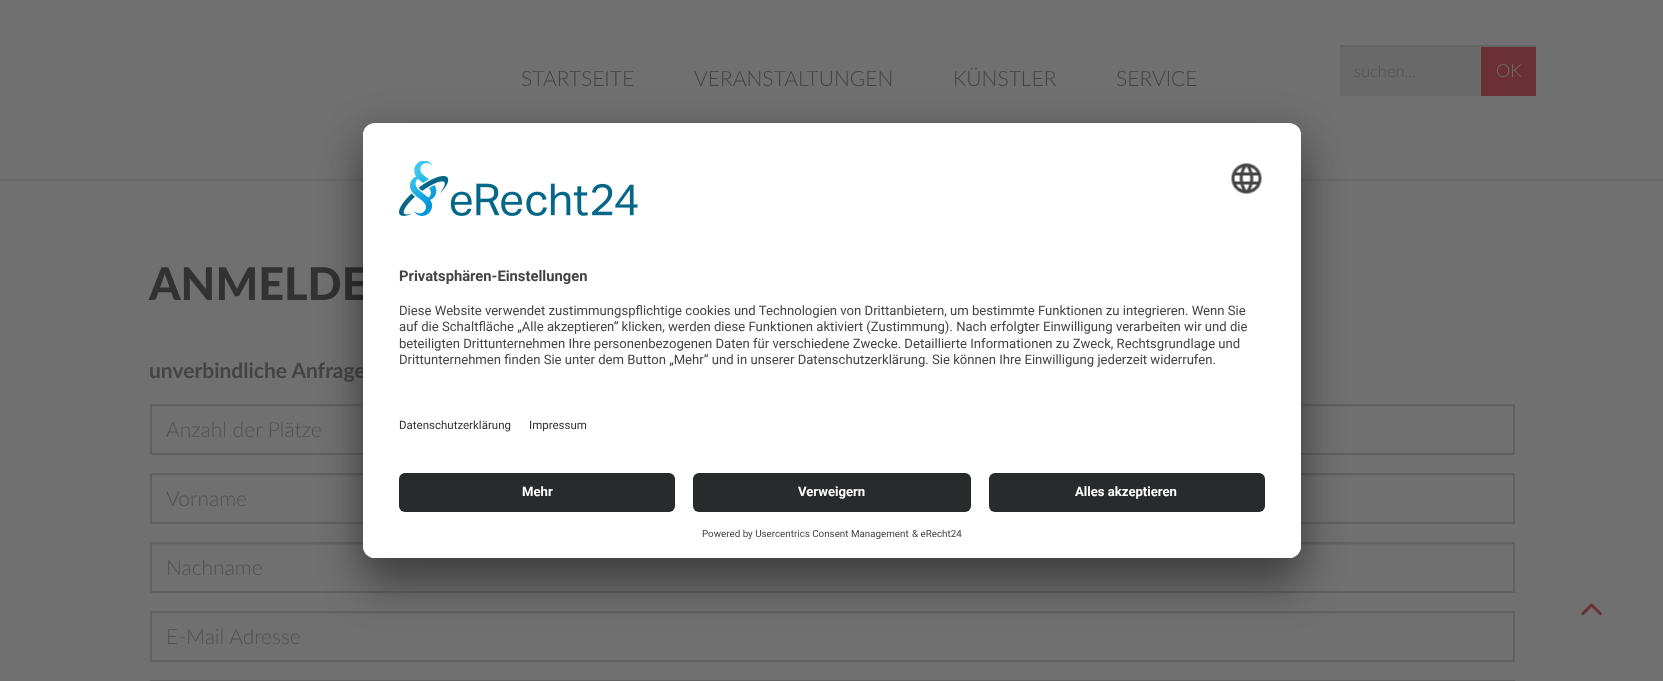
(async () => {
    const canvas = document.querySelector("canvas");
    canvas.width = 1663;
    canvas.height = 681;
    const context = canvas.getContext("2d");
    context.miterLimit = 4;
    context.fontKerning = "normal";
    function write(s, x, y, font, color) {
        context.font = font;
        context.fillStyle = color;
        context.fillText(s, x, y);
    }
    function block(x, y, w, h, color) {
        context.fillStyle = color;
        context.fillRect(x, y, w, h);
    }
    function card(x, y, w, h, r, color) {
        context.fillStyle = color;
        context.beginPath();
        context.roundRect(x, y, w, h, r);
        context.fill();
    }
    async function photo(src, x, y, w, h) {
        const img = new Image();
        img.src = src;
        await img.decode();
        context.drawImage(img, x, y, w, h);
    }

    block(0, 0, 1663, 681, "rgb(112, 112, 112)");
    block(0, 179, 1663, 2, "rgb(105, 105, 105)");
    write("STARTSEITE", 521, 86, "300 21px Lato", "rgb(68, 68, 68)");
    write("VERANSTALTUNGEN", 694, 86, "300 21px Lato", "rgb(68, 68, 68)");
    write("KÜNSTLER", 953, 86, "300 21px Lato", "rgb(68, 68, 68)");
    write("SERVICE", 1116, 86, "300 21px Lato", "rgb(68, 68, 68)");
    block(1340, 47, 141, 49, "rgb(105, 105, 105)");
    block(1340, 45, 196, 2, "rgb(100, 100, 100)");
    write("suchen...", 1354, 77, "300 16.5px Lato", "rgb(82, 82, 82)");
    block(1481, 47, 55, 49, "rgb(106, 48, 51)");
    write("OK", 1496, 77, "300 18px Lato", "rgb(112, 112, 112)");
    write("ANMELDE", 149, 300, "900 45px Lato", "rgb(50, 50, 50)");
    write("unverbindliche Anfrage", 149, 378, "bold 21px Lato", "rgb(68, 68, 68)");
    block(152, 406, 1362, 1, "rgb(107, 107, 107)");
    context.strokeStyle = "rgb(97, 97, 97)";
    context.lineWidth = 2;
    context.strokeRect(151, 405, 1363, 49);
    write("Anzahl der Plätze", 166, 437, "300 21px Lato", "rgb(82, 82, 82)");
    block(152, 475, 1362, 1, "rgb(107, 107, 107)");
    context.strokeRect(151, 474, 1363, 49);
    write("Vorname", 166, 506, "300 21px Lato", "rgb(82, 82, 82)");
    block(152, 544, 1362, 1, "rgb(107, 107, 107)");
    context.strokeRect(151, 543, 1363, 49);
    write("Nachname", 166, 575, "300 21px Lato", "rgb(82, 82, 82)");
    block(152, 613, 1362, 1, "rgb(107, 107, 107)");
    context.strokeRect(151, 612, 1363, 49);
    write("E-Mail Adresse", 166, 644, "300 21px Lato", "rgb(82, 82, 82)");
    context.strokeRect(151, 681, 1363, 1);
    await photo("media/1.png", 1581, 603, 21, 13);
    context.fillStyle = "rgba(0, 0, 0, 0.3)";
    context.filter = "blur(21px)";
    context.beginPath();
    context.roundRect(363, 153, 938, 435, 12);
    context.fill();
    context.filter = "none";
    context.fillStyle = "rgba(0, 0, 0, 0.22)";
    context.filter = "blur(19.5px)";
    context.beginPath();
    context.roundRect(363, 131, 938, 435, 12);
    context.fill();
    context.filter = "none";
    card(363, 123, 938, 435, 12, "rgb(255, 255, 255)");
    context.save();
    context.beginPath();
    context.roundRect(363, 123, 938, 435, 12);
    context.clip();
    context.beginPath();
    context.roundRect(363, 123, 938, 338, [12, 12, 0, 0]);
    context.clip();
    block(363, 125, 938, 336, "rgb(255, 255, 255)");
    context.restore();
    await photo("media/2.png", 399, 161, 239, 55);
    await photo("media/3.png", 1231, 163, 31, 31);
    write("Privatsphären-Einstellungen", 399, 281, "bold 14.75px Roboto", "rgb(68, 68, 68)");
    write("Diese Website verwendet zustimmungspflichtige cookies und Technologien von Drittanbietern, um bestimmte Funktionen zu integrieren. Wenn Sie", 399, 315, "13.12px Roboto", "rgb(68, 68, 68)");
    write("auf die Schaltfläche „Alle akzeptieren“ klicken, werden diese Funktionen aktiviert (Zustimmung). Nach erfolgter Einwilligung verarbeiten wir und die", 399, 331, "13.12px Roboto", "rgb(68, 68, 68)");
    write("beteiligten Drittunternehmen Ihre personenbezogenen Daten für verschiedene Zwecke. Detaillierte Informationen zu Zweck, Rechtsgrundlage und", 399, 348, "13.12px Roboto", "rgb(68, 68, 68)");
    write("Drittunternehmen finden Sie unter dem Button „Mehr“ und in unserer Datenschutzerklärung. Sie können Ihre Einwilligung jederzeit widerrufen.", 399, 364, "13.12px Roboto", "rgb(68, 68, 68)");
    write("Datenschutzerklärung", 399, 429, "11.5px Roboto", "rgb(50, 50, 50)");
    write("Impressum", 529, 429, "11.5px Roboto", "rgb(50, 50, 50)");
    context.fillStyle = "rgb(255, 255, 255)";
    context.beginPath();
    context.roundRect(363, 461, 938, 97, [0, 0, 12, 12]);
    context.fill();
    card(399, 473, 276, 39, 6, "rgb(41, 42, 43)");
    write("Mehr", 522, 496, "bold 13.12px Roboto", "rgb(255, 255, 255)");
    card(693, 473, 278, 39, 6, "rgb(41, 42, 43)");
    write("Verweigern", 798, 496, "bold 13.12px Roboto", "rgb(255, 255, 255)");
    card(989, 473, 276, 39, 6, "rgb(41, 42, 43)");
    write("Alles akzeptieren", 1075, 496, "bold 13.12px Roboto", "rgb(255, 255, 255)");
    write("Powered by Usercentrics Consent Management", 702, 537, "9.8px Roboto", "rgb(68, 68, 68)");
    write("& eRecht24", 912, 537, "9.8px Roboto", "rgb(68, 68, 68)");
})();
